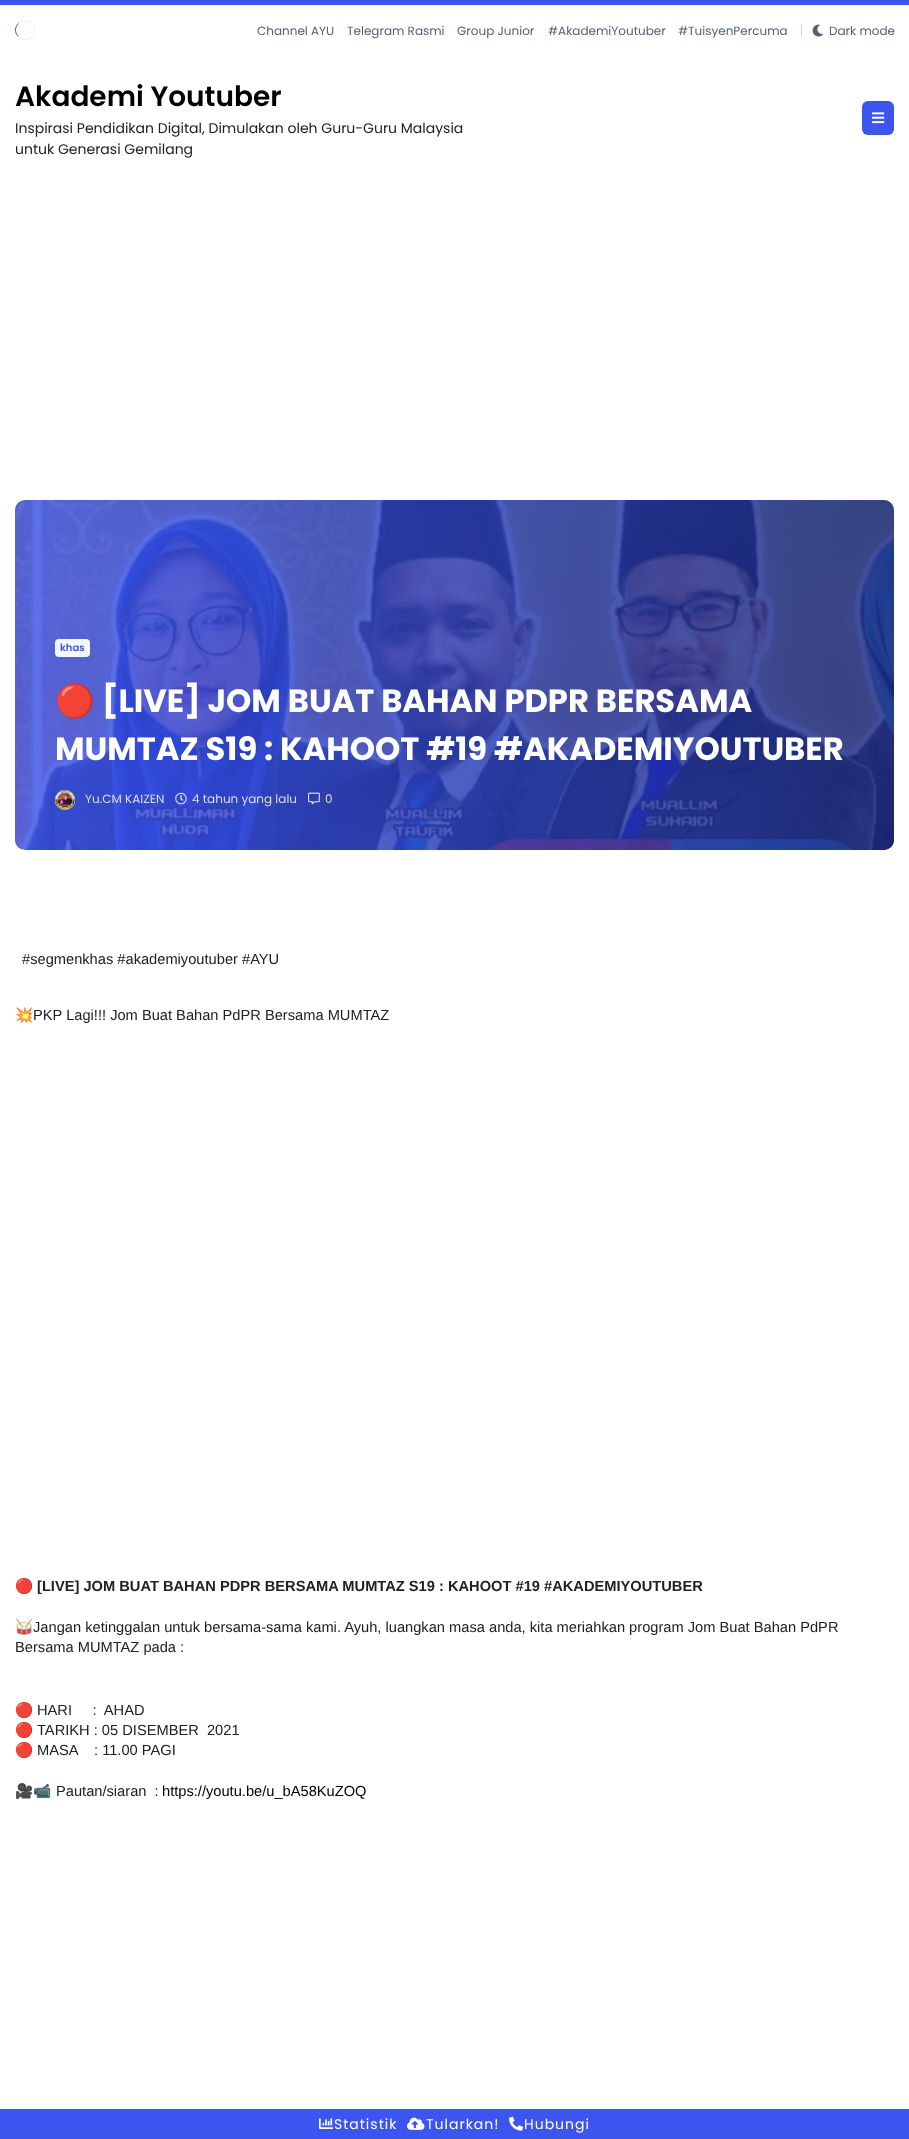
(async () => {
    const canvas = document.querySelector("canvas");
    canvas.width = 909;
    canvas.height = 2139;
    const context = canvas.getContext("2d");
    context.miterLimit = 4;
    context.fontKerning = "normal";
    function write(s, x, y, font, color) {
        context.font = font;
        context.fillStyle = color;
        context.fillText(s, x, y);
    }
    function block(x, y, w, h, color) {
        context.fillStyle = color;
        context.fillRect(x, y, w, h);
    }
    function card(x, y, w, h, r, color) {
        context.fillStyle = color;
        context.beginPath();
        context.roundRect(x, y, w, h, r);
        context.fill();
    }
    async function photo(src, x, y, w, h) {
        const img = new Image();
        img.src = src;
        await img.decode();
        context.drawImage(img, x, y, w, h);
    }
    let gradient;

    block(0, 0, 909, 2139, "rgb(255, 255, 255)");
    block(0, 0, 909, 5, "rgb(61, 85, 239)");
    context.beginPath();
    context.moveTo(18.5, 23.5);
    context.bezierCurveTo(20.5, 21, 24, 20, 27, 20.5);
    context.bezierCurveTo(38, 23, 36.5, 39.5, 25, 39.5);
    context.bezierCurveTo(22.5, 39.5, 20, 38.5, 18.5, 36.5);
    context.strokeStyle = "rgb(240, 240, 240)";
    context.stroke();
    context.beginPath();
    context.moveTo(18.5, 36.5);
    context.bezierCurveTo(14.5, 33, 14.5, 27, 18.5, 23.5);
    context.strokeStyle = "rgb(61, 85, 239)";
    context.stroke();
    write("Channel AYU", 257, 35, "12px Poppins", "rgb(81, 98, 116)");
    write("Telegram Rasmi", 347, 35, "12px Poppins", "rgb(81, 98, 116)");
    write("Group Junior", 457, 35, "12px Poppins", "rgb(81, 98, 116)");
    write("#AkademiYoutuber", 548, 35, "12px Poppins", "rgb(81, 98, 116)");
    write("#TuisyenPercuma", 678, 35, "12px Poppins", "rgb(81, 98, 116)");
    block(801, 25, 1, 11, "rgb(203, 211, 215)");
    await photo("media/1.png", 812, 24, 12, 13);
    write("Dark mode", 829, 35, "12px Poppins", "rgb(81, 98, 116)");
    write("Akademi Youtuber", 15, 106, "600 28px Poppins", "rgb(0, 0, 0)");
    write("Inspirasi Pendidikan Digital, Dimulakan oleh Guru-Guru Malaysia", 15, 133, "14px Poppins", "rgb(32, 33, 36)");
    write("untuk Generasi Gemilang", 15, 154, "14px Poppins", "rgb(32, 33, 36)");
    card(862, 101, 32, 34, 6, "rgb(61, 85, 239)");
    await photo("media/2.png", 872, 112, 13, 12);
    await photo("media/3.png", 15, 500, 879, 350);
    gradient = context.createLinearGradient(15, 675, 894, 675);
    gradient.addColorStop(0, "rgba(61, 85, 239, 0.83)");
    gradient.addColorStop(1, "rgba(27, 41, 130, 0.83)");
    context.fillStyle = gradient;
    context.beginPath();
    context.roundRect(15, 500, 879, 350, 10);
    context.fill();
    card(55, 639, 35, 18, 4, "rgb(245, 248, 250)");
    write("khas", 60, 651, "600 10px Poppins", "rgb(61, 85, 239)");
    write("🔴", 55, 712, "bold 32.2px Noto Color Emoji", "rgb(255, 255, 255)");
    write("[LIVE] JOM BUAT BAHAN PDPR BERSAMA", 102, 712, "bold 32.2px Poppins", "rgb(255, 255, 255)");
    write("MUMTAZ S19 : KAHOOT #19 #AKADEMIYOUTUBER", 55, 760, "bold 32.2px Poppins", "rgb(255, 255, 255)");
    context.fillStyle = "rgb(221, 232, 240)";
    context.beginPath();
    context.arc(65, 800, 10, 0, Math.PI * 2);
    context.fill();
    await photo("media/4.png", 55, 790, 20, 20);
    write("Yu.CM KAIZEN", 85, 803, "12px Poppins", "rgb(222, 222, 222)");
    await photo("media/5.png", 175, 792, 12, 13);
    write("4 tahun yang lalu", 192, 803, "12px Poppins", "rgb(222, 222, 222)");
    await photo("media/6.png", 308, 792, 12, 13);
    write("0", 325, 803, "12px Poppins", "rgb(222, 222, 222)");
    write("#segmenkhas #akademiyoutuber #AYU", 22, 964, "14.67px Liberation Sans", "rgb(32, 33, 36)");
    write("💥", 15, 1020, "14.67px Noto Color Emoji", "rgb(32, 33, 36)");
    write("PKP Lagi!!! Jom Buat Bahan PdPR Bersama MUMTAZ", 33, 1020, "14.67px Liberation Sans", "rgb(32, 33, 36)");
    write("🔴", 15, 1591, "bold 14.67px Noto Color Emoji", "rgb(255, 0, 0)");
    write("[LIVE] JOM BUAT BAHAN PDPR BERSAMA MUMTAZ S19 : KAHOOT #19 #AKADEMIYOUTUBER", 37, 1591, "bold 14.67px Liberation Sans", "rgb(32, 33, 36)");
    write("🥁", 15, 1632, "14.67px Noto Color Emoji", "rgb(32, 33, 36)");
    write("Jangan ketinggalan untuk bersama-sama kami. Ayuh, luangkan masa anda, kita meriahkan program Jom Buat Bahan PdPR", 33, 1632, "14.67px Liberation Sans", "rgb(32, 33, 36)");
    write("Bersama MUMTAZ pada :", 15, 1652, "14.67px Liberation Sans", "rgb(32, 33, 36)");
    write("🔴", 15, 1715, "14.67px Noto Color Emoji", "rgb(32, 33, 36)");
    write("HARI     :  AHAD", 37, 1715, "14.67px Liberation Sans", "rgb(32, 33, 36)");
    write("🔴", 15, 1735, "14.67px Noto Color Emoji", "rgb(32, 33, 36)");
    write("TARIKH : 05 DISEMBER  2021", 37, 1735, "14.67px Liberation Sans", "rgb(32, 33, 36)");
    write("🔴", 15, 1755, "14.67px Noto Color Emoji", "rgb(32, 33, 36)");
    write("MASA    : 11.00 PAGI", 37, 1755, "14.67px Liberation Sans", "rgb(32, 33, 36)");
    write("🎥📹", 15, 1796, "14.67px Noto Color Emoji", "rgb(32, 33, 36)");
    write("Pautan/siaran  :", 56, 1796, "14.67px Liberation Sans", "rgb(32, 33, 36)");
    write("https://youtu.be/u_bA58KuZOQ", 162, 1796, "14.67px Liberation Sans", "rgb(0, 0, 0)");
    block(0, 2109, 909, 30, "rgb(61, 85, 239)");
    await photo("media/7.png", 319, 2118, 14, 11);
    context.letterSpacing = "1px";
    write("Statistik", 334, 2129, "14px Poppins", "rgb(255, 255, 255)");
    await photo("media/8.png", 407, 2117, 18, 13);
    write("Tularkan!", 426, 2129, "14px Poppins", "rgb(255, 255, 255)");
    await photo("media/9.png", 509, 2116, 14, 15);
    write("Hubungi", 524, 2129, "14px Poppins", "rgb(255, 255, 255)");
})();
